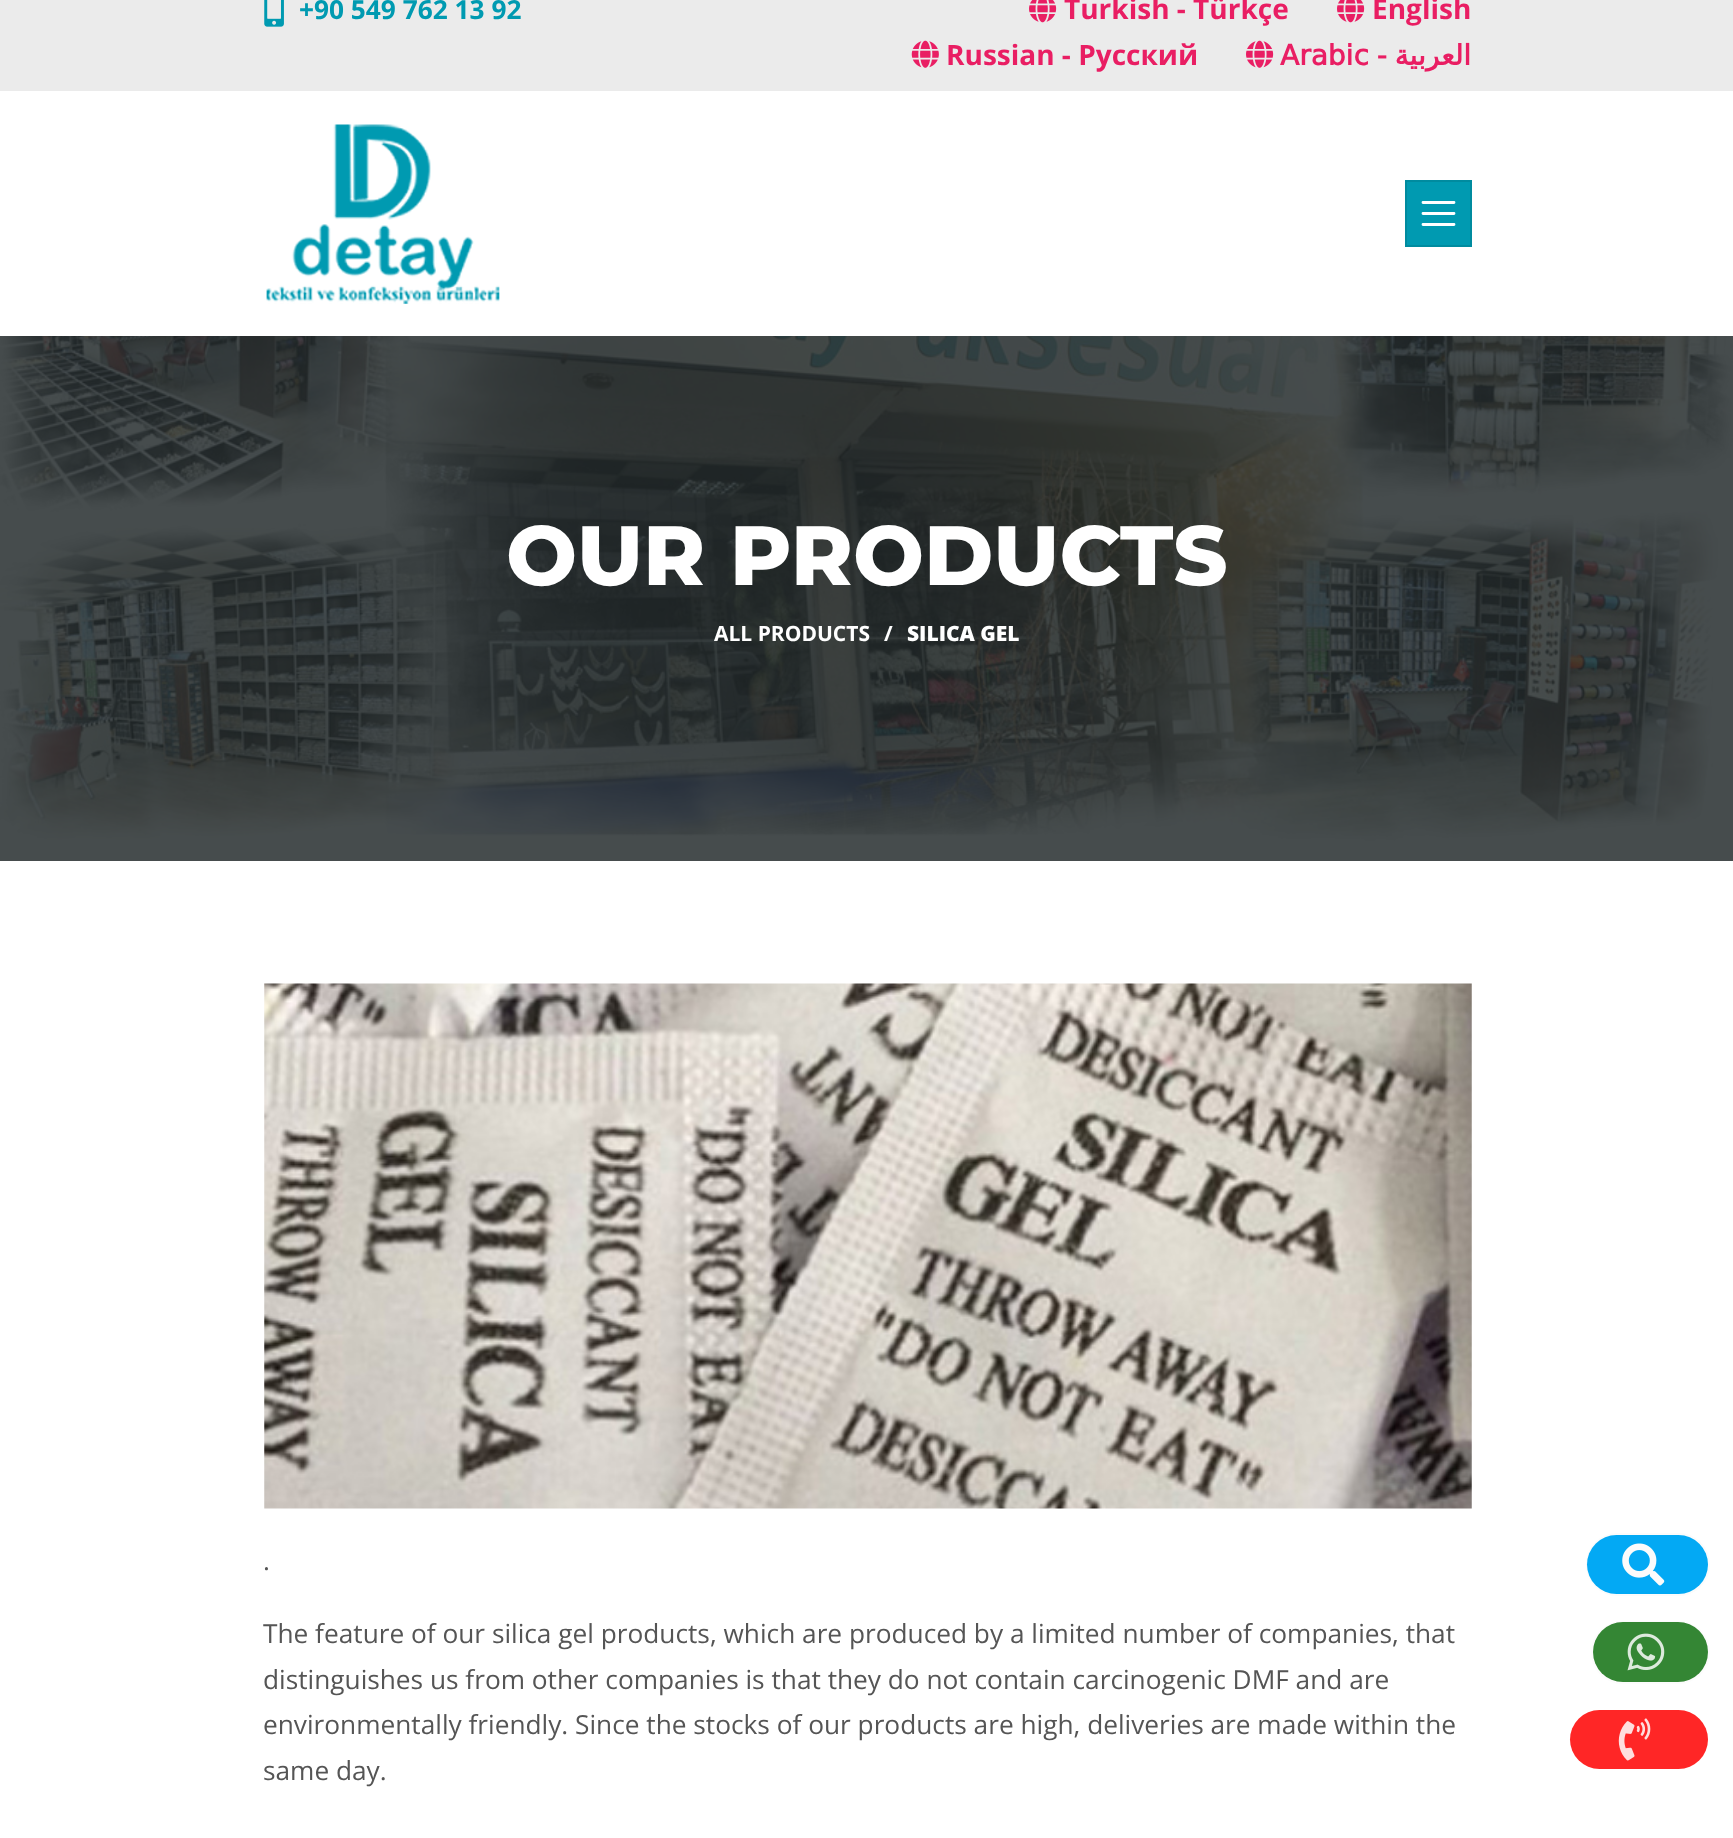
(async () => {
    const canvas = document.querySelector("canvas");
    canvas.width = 1733;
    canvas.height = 1838;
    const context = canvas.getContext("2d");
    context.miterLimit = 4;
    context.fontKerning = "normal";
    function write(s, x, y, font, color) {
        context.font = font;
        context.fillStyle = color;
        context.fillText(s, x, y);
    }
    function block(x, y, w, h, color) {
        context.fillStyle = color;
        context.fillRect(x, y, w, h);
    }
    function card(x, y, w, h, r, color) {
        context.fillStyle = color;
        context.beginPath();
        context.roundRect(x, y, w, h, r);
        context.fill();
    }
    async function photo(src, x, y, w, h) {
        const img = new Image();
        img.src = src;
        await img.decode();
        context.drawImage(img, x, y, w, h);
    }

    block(0, 0, 1733, 1838, "rgb(255, 255, 255)");
    block(0, 0, 1733, 91, "rgb(235, 235, 235)");
    await photo("media/1.png", 264, 0, 20, 27);
    write("+90 549 762 13 92", 299, 19, "bold 26.25px Open Sans", "rgb(0, 154, 177)");
    await photo("media/2.png", 1029, 0, 28, 23);
    write("Turkish - Türkçe", 1064, 19, "bold 28px Open Sans", "rgb(233, 30, 99)");
    await photo("media/2.png", 1337, 0, 28, 23);
    write("English", 1372, 19, "bold 28px Open Sans", "rgb(233, 30, 99)");
    await photo("media/3.png", 911, 40, 28, 28);
    write("Russian - Русский", 946, 65, "bold 28px Open Sans", "rgb(233, 30, 99)");
    await photo("media/4.png", 1246, 40, 28, 28);
    context.wordSpacing = "-1px";
    write("Arabic -", 1280, 65, "bold 28px DejaVu Sans", "rgb(233, 30, 99)");
    context.wordSpacing = "0px";
    context.direction = "rtl";
    write("العربية", 1471, 65, "bold 28px DejaVu Sans", "rgb(233, 30, 99)");
    await photo("media/5.png", 266, 124, 234, 180);
    context.fillStyle = "rgb(0, 154, 177)";
    context.beginPath();
    context.rect(1406, 181, 65, 65);
    context.fill();
    context.strokeStyle = "rgb(0, 139, 159)";
    context.lineWidth = 2;
    context.stroke();
    context.beginPath();
    context.moveTo(1423, 202.5);
    context.lineTo(1454, 202.5);
    context.moveTo(1423, 213.5);
    context.lineTo(1454, 213.5);
    context.moveTo(1423, 224.5);
    context.lineTo(1454, 224.5);
    context.strokeStyle = "rgb(255, 255, 255)";
    context.lineWidth = 2.8;
    context.lineCap = "round";
    context.stroke();
    await photo("media/6.png", 0, 336, 1733, 506);
    block(0, 336, 1733, 525, "rgba(35, 42, 43, 0.84)");
    context.direction = "ltr";
    write("OUR PRODUCTS", 506, 585, "800 84px Montserrat", "rgb(255, 255, 255)");
    write("ALL PRODUCTS", 714, 641, "bold 21px Open Sans", "rgb(255, 255, 255)");
    write("/", 884, 641, "bold 21px Open Sans", "rgb(255, 255, 255)");
    write("SILICA GEL", 907, 641, "800 21px Open Sans", "rgb(255, 255, 255)");
    await photo("media/7.png", 264, 983, 1208, 526);
    write(".", 263, 1570, "26.25px Open Sans", "rgb(85, 85, 85)");
    write("The feature of our silica gel products, which are produced by a limited number of companies, that", 263, 1643, "26.25px Open Sans", "rgb(85, 85, 85)");
    write("distinguishes us from other companies is that they do not contain carcinogenic DMF and are", 263, 1689, "26.25px Open Sans", "rgb(85, 85, 85)");
    write("environmentally friendly. Since the stocks of our products are high, deliveries are made within the", 263, 1734, "26.25px Open Sans", "rgb(85, 85, 85)");
    write("same day.", 263, 1780, "26.25px Open Sans", "rgb(85, 85, 85)");
    context.beginPath();
    context.roundRect(1587, 1534, 122, 61, 30.5);
    context.strokeStyle = "rgb(251, 251, 251)";
    context.lineWidth = 2;
    context.stroke();
    card(1587, 1535, 121, 59, 29.5, "rgb(3, 169, 244)");
    await photo("media/8.png", 1622, 1543, 43, 43);
    context.beginPath();
    context.roundRect(1592, 1622, 117, 61, 30.5);
    context.strokeStyle = "rgb(252, 252, 252)";
    context.stroke();
    card(1593, 1622, 115, 60, 30, "rgb(52, 134, 52)");
    await photo("media/9.png", 1627, 1633, 38, 38);
    card(1570, 1710, 138, 59, 29.5, "rgb(255, 38, 38)");
    await photo("media/10.png", 1618, 1718, 33, 43);
})();
